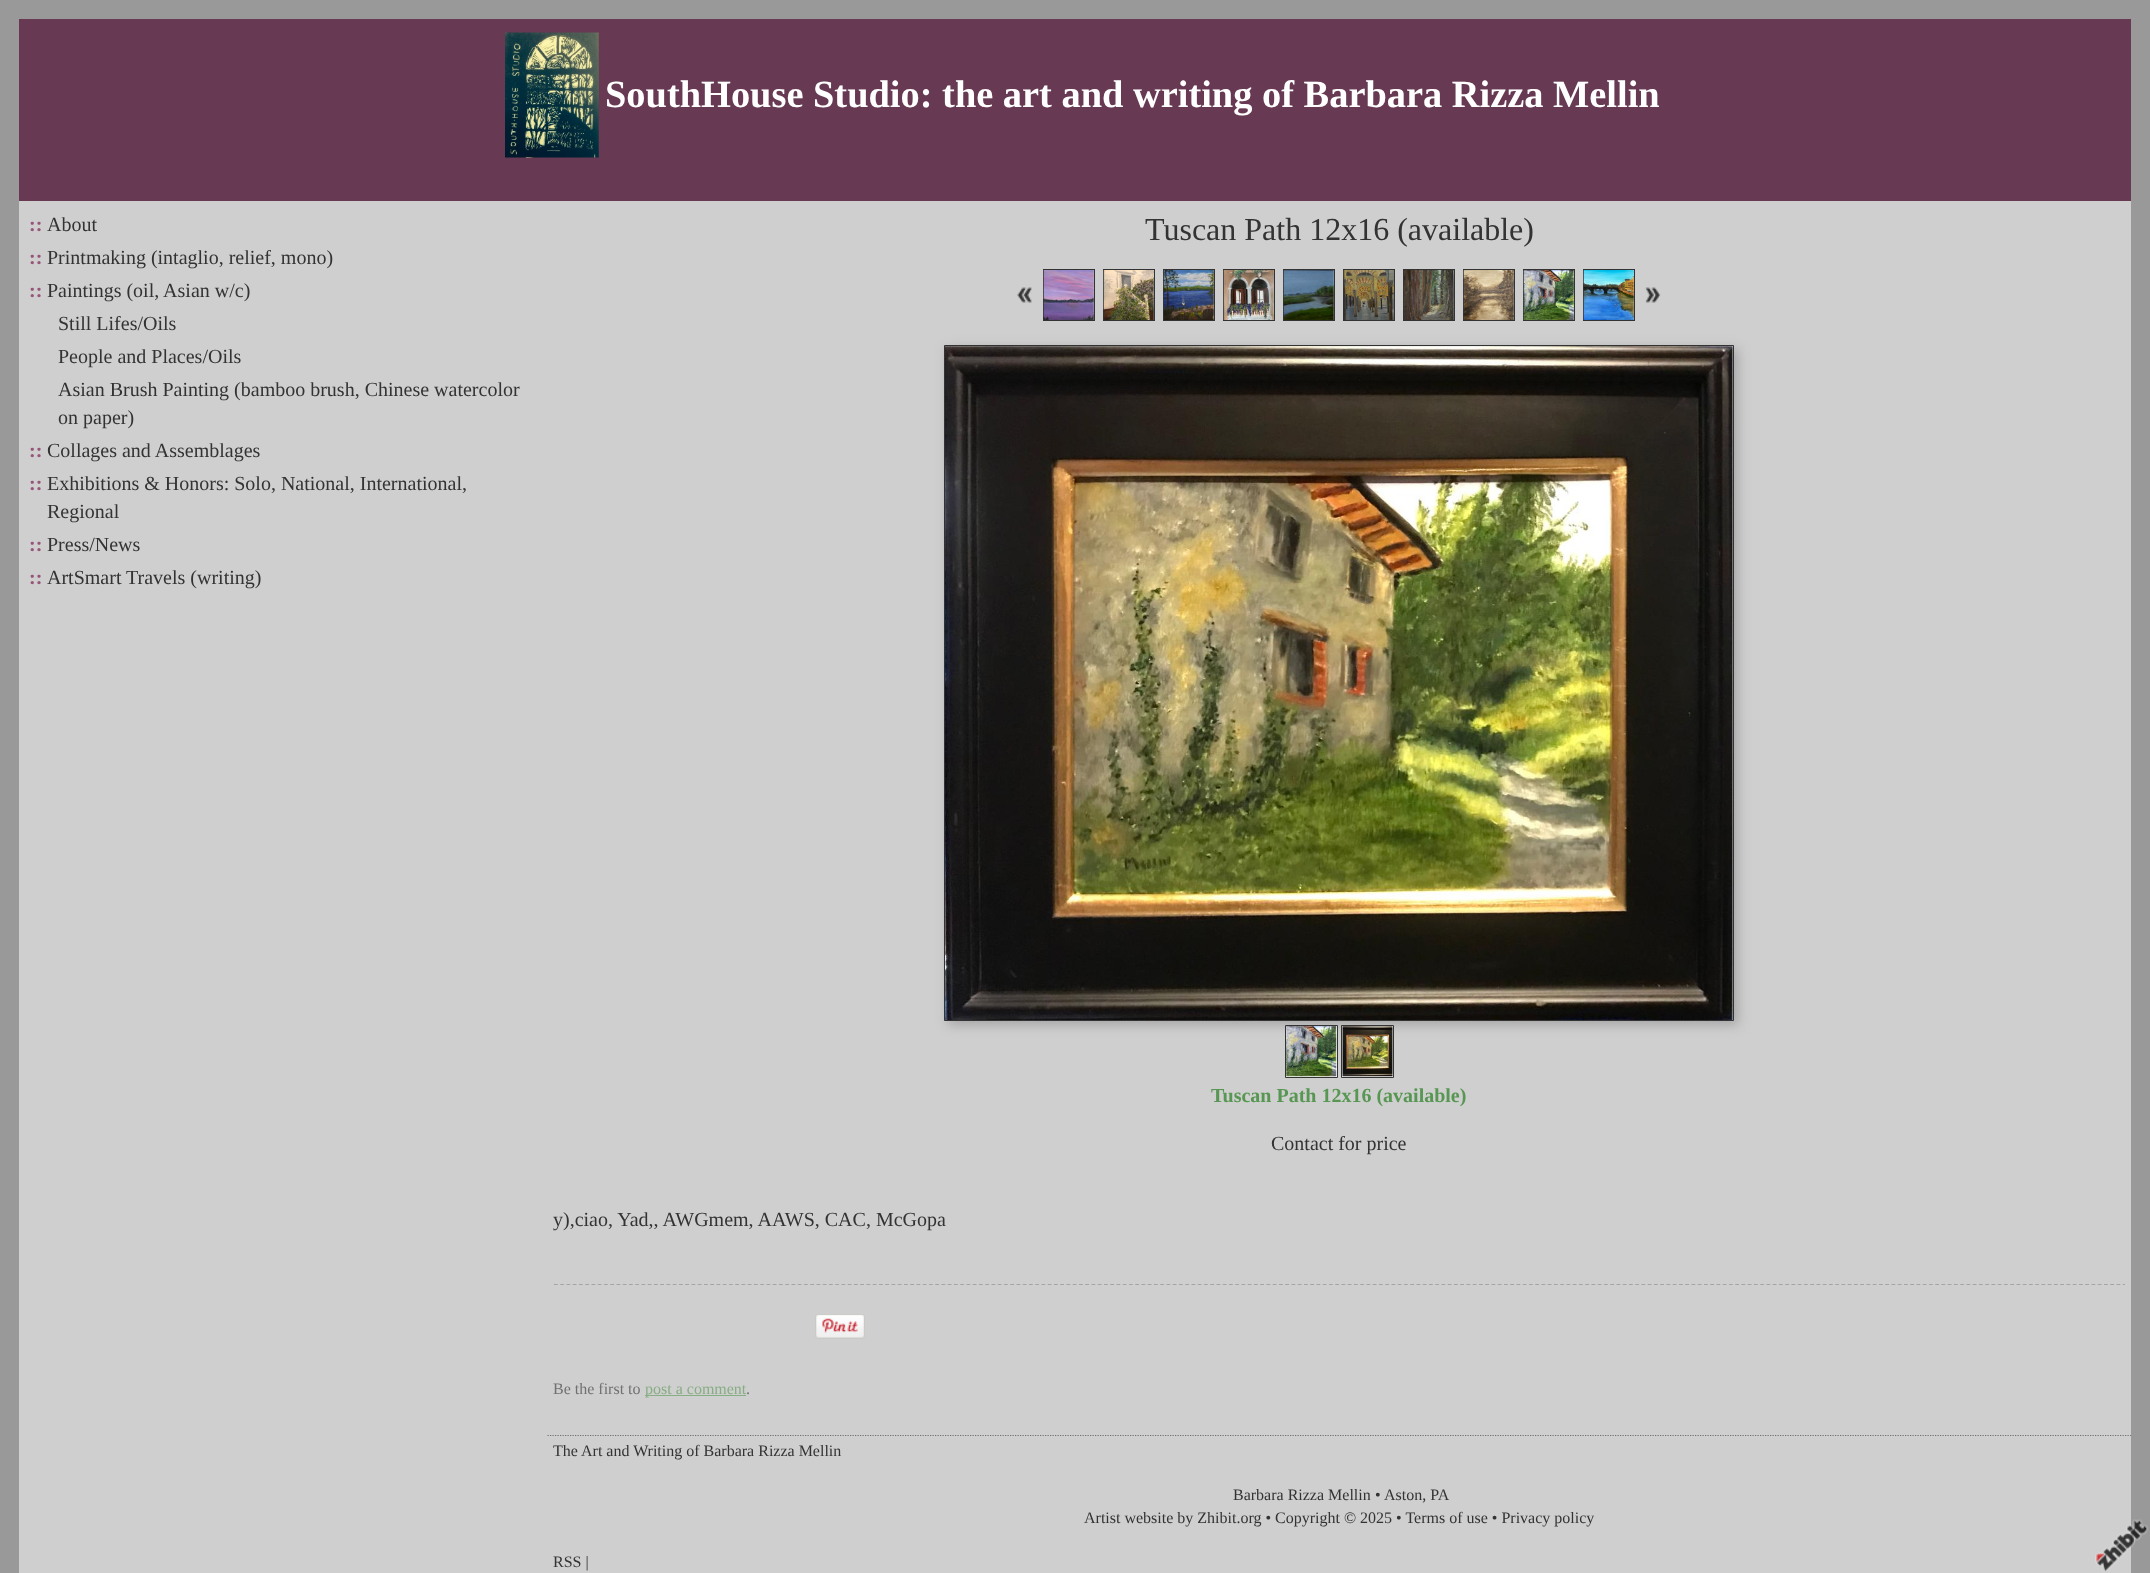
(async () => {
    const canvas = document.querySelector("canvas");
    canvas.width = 2150;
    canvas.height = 1573;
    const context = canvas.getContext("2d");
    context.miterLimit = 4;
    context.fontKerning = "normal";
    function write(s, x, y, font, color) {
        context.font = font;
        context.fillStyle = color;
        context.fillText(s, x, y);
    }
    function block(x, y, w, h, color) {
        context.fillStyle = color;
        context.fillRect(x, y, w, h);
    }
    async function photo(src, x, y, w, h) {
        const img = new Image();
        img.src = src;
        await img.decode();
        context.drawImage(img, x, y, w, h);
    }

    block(0, 0, 2150, 1573, "rgb(153, 153, 153)");
    block(19, 201, 2112, 1372, "rgb(207, 207, 207)");
    block(19, 19, 2112, 182, "rgb(103, 57, 83)");
    await photo("media/1.png", 505, 32, 94, 126);
    write("SouthHouse Studio: the art and writing of Barbara Rizza Mellin", 605, 107, "bold 38.4px Liberation Serif", "rgb(255, 255, 255)");
    write("::", 29, 231, "bold 20px Liberation Serif", "rgb(151, 84, 122)");
    write("About", 47, 231, "20px Liberation Serif", "rgb(51, 51, 51)");
    write("::", 29, 264, "bold 20px Liberation Serif", "rgb(151, 84, 122)");
    write("Printmaking (intaglio, relief, mono)", 47, 264, "20px Liberation Serif", "rgb(51, 51, 51)");
    write("::", 29, 297, "bold 20px Liberation Serif", "rgb(151, 84, 122)");
    write("Paintings (oil, Asian w/c)", 47, 297, "20px Liberation Serif", "rgb(51, 51, 51)");
    write("Still Lifes/Oils", 58, 330, "20px Liberation Serif", "rgb(51, 51, 51)");
    write("People and Places/Oils", 58, 363, "20px Liberation Serif", "rgb(51, 51, 51)");
    write("Asian Brush Painting (bamboo brush, Chinese watercolor", 58, 396, "20px Liberation Serif", "rgb(51, 51, 51)");
    write("on paper)", 58, 424, "20px Liberation Serif", "rgb(51, 51, 51)");
    write("::", 29, 457, "bold 20px Liberation Serif", "rgb(151, 84, 122)");
    write("Collages and Assemblages", 47, 457, "20px Liberation Serif", "rgb(51, 51, 51)");
    write("::", 29, 490, "bold 20px Liberation Serif", "rgb(151, 84, 122)");
    write("Exhibitions & Honors: Solo, National, International,", 47, 490, "20px Liberation Serif", "rgb(51, 51, 51)");
    write("Regional", 47, 518, "20px Liberation Serif", "rgb(51, 51, 51)");
    write("::", 29, 551, "bold 20px Liberation Serif", "rgb(151, 84, 122)");
    write("Press/News", 47, 551, "20px Liberation Serif", "rgb(51, 51, 51)");
    write("::", 29, 584, "bold 20px Liberation Serif", "rgb(151, 84, 122)");
    write("ArtSmart Travels (writing)", 47, 584, "20px Liberation Serif", "rgb(51, 51, 51)");
    write("Tuscan Path 12x16 (available)", 1145, 240, "32px Liberation Serif", "rgb(51, 51, 51)");
    await photo("media/2.png", 1017, 287, 15, 16);
    context.strokeStyle = "rgb(51, 51, 51)";
    context.strokeRect(1043.5, 269.5, 51, 51);
    await photo("media/3.png", 1043, 270, 51, 50);
    context.strokeRect(1103.5, 269.5, 51, 51);
    await photo("media/4.png", 1103, 270, 51, 50);
    context.strokeRect(1163.5, 269.5, 51, 51);
    await photo("media/5.png", 1163, 270, 51, 50);
    context.strokeRect(1223.5, 269.5, 51, 51);
    await photo("media/6.png", 1223, 270, 51, 50);
    context.strokeRect(1283.5, 269.5, 51, 51);
    await photo("media/7.png", 1283, 270, 51, 50);
    context.strokeRect(1343.5, 269.5, 51, 51);
    await photo("media/8.png", 1343, 270, 51, 50);
    context.strokeRect(1403.5, 269.5, 51, 51);
    await photo("media/9.png", 1403, 270, 51, 50);
    context.strokeRect(1463.5, 269.5, 51, 51);
    await photo("media/10.png", 1463, 270, 51, 50);
    context.strokeRect(1523.5, 269.5, 51, 51);
    await photo("media/11.png", 1523, 270, 51, 50);
    context.strokeRect(1583.5, 269.5, 51, 51);
    await photo("media/12.png", 1583, 270, 51, 50);
    await photo("media/13.png", 1645, 287, 16, 16);
    context.fillStyle = "rgb(165, 165, 165)";
    context.filter = "blur(6px)";
    context.beginPath();
    context.rect(948, 349, 790, 676);
    context.fill();
    context.filter = "none";
    context.fillStyle = "rgb(207, 207, 207)";
    context.beginPath();
    context.rect(944.5, 345.5, 789, 675);
    context.fill();
    context.stroke();
    await photo("media/14.png", 945, 346, 788, 674);
    context.fillStyle = "rgb(255, 255, 255)";
    context.beginPath();
    context.rect(1285.5, 1025.5, 52, 52);
    context.fill();
    context.stroke();
    await photo("media/15.png", 1286, 1026, 51, 51);
    context.beginPath();
    context.rect(1341.5, 1025.5, 52, 52);
    context.fill();
    context.stroke();
    await photo("media/16.png", 1342, 1026, 51, 51);
    write("Tuscan Path 12x16 (available)", 1211, 1102, "bold 20px Liberation Serif", "rgb(88, 151, 83)");
    write("Contact for price", 1271, 1150, "20px Liberation Serif", "rgb(51, 51, 51)");
    write("y),ciao, Yad,, AWGmem, AAWS, CAC, McGopa", 553, 1226, "20px Liberation Serif", "rgb(51, 51, 51)");
    context.beginPath();
    context.moveTo(554, 1284.5);
    context.lineTo(2125, 1284.5);
    context.strokeStyle = "rgb(165, 165, 165)";
    context.lineWidth = 1.2;
    context.setLineDash([3.75, 2.5]);
    context.stroke();
    await photo("media/17.png", 815, 1314, 50, 25);
    write("Be the first to", 553, 1394, "16px Liberation Serif", "rgb(113, 113, 113)");
    block(645, 1395, 101, 1, "rgb(135, 173, 132)");
    write("post a comment", 645, 1394, "16px Liberation Serif", "rgb(135, 173, 132)");
    write(".", 746, 1394, "16px Liberation Serif", "rgb(113, 113, 113)");
    context.beginPath();
    context.moveTo(547.5, 1435.5);
    context.lineTo(2131, 1435.5);
    context.strokeStyle = "rgb(113, 113, 113)";
    context.setLineDash([1.25, 1.25]);
    context.stroke();
    write("The Art and Writing of Barbara Rizza Mellin", 553, 1456, "16px Liberation Serif", "rgb(51, 51, 51)");
    write("Barbara Rizza Mellin", 1233, 1500, "16px Liberation Serif", "rgb(51, 51, 51)");
    write("•", 1375, 1500, "16px Liberation Serif", "rgb(51, 51, 51)");
    write("Aston, PA", 1384, 1500, "16px Liberation Serif", "rgb(51, 51, 51)");
    write("Artist website by Zhibit.org • Copyright © 2025 • Terms of use • Privacy policy", 1084, 1523, "16px Liberation Serif", "rgb(51, 51, 51)");
    write("RSS |", 553, 1567, "16px Liberation Serif", "rgb(51, 51, 51)");
    await photo("media/18.png", 2095, 1519, 54, 53);
})();
